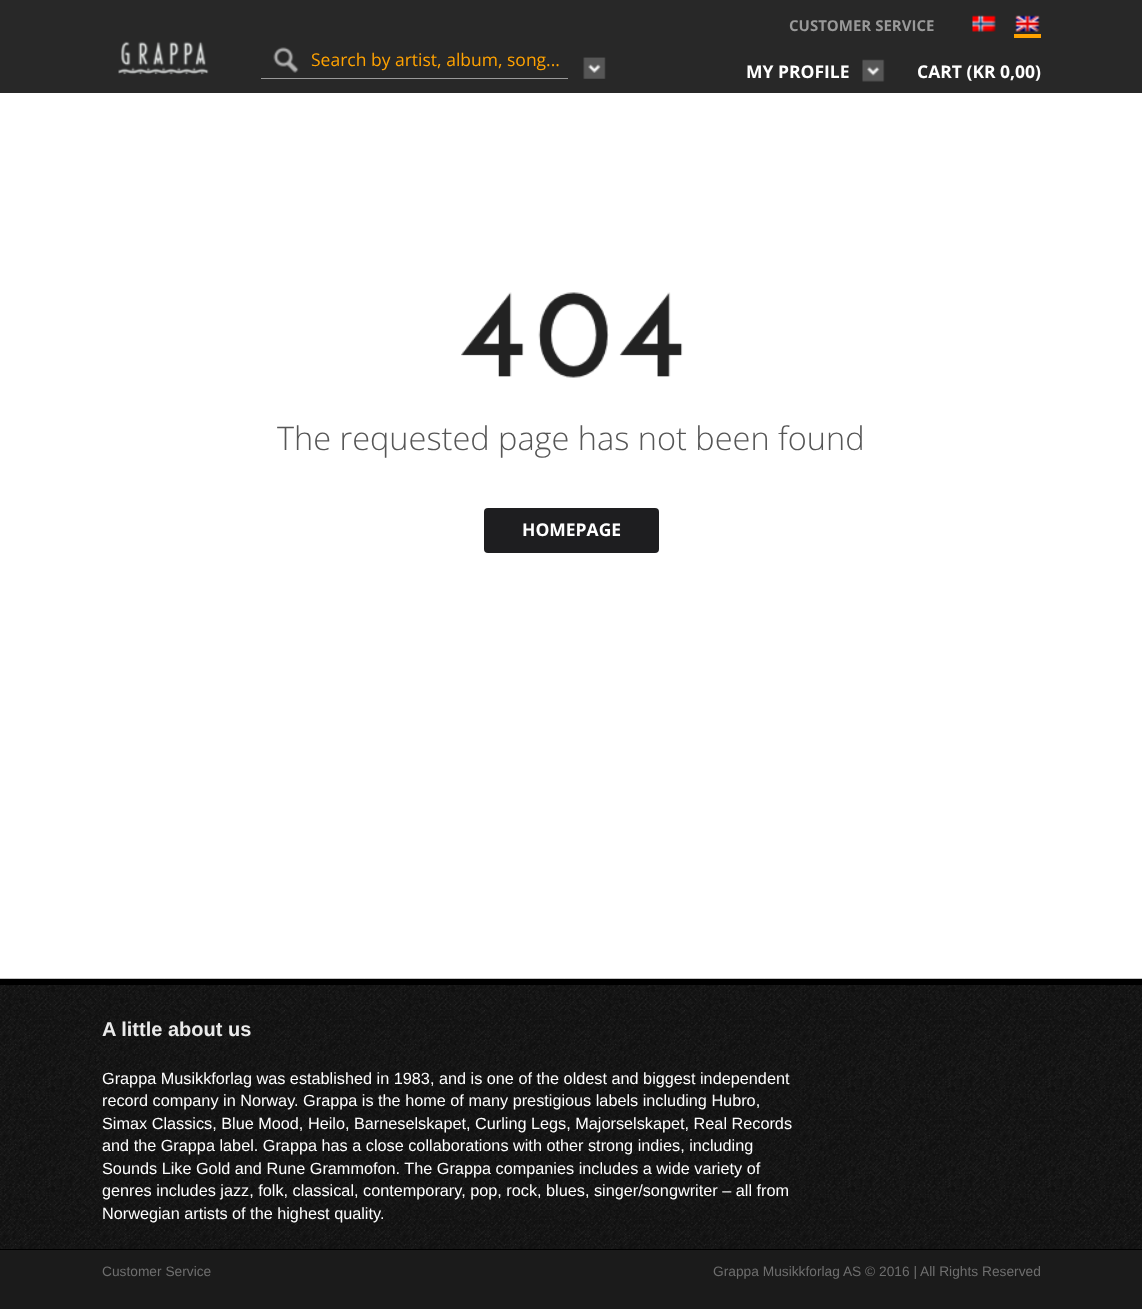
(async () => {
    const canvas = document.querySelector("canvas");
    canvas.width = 1142;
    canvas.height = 1309;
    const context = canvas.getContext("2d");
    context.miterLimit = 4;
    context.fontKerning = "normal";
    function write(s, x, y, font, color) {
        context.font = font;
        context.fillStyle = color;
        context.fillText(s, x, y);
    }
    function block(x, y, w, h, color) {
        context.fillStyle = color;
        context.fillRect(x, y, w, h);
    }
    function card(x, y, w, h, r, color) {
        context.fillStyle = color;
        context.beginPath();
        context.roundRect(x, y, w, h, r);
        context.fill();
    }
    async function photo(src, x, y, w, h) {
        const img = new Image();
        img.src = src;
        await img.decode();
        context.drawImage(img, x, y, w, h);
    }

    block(0, 0, 1142, 1309, "rgb(255, 255, 255)");
    block(0, 0, 1142, 93, "rgb(40, 40, 40)");
    write("CUSTOMER SERVICE", 789, 31, "bold 15px Open Sans", "rgb(153, 153, 153)");
    await photo("media/1.png", 972, 15, 24, 17);
    await photo("media/2.png", 1015, 15, 25, 17);
    block(1014, 34, 27, 4, "rgb(255, 162, 0)");
    await photo("media/3.png", 118, 41, 91, 34);
    await photo("media/4.png", 273, 47, 26, 26);
    block(261, 78, 307, 1, "rgb(153, 153, 153)");
    write("Search by artist, album, song...", 311, 66, "17.5px Open Sans", "rgb(255, 162, 0)");
    await photo("media/5.png", 583, 57, 23, 22);
    write("MY PROFILE", 746, 78, "bold 17.5px Open Sans", "rgb(255, 255, 255)");
    await photo("media/6.png", 862, 59, 23, 23);
    write("CART (KR 0,00)", 917, 78, "bold 17.5px Open Sans", "rgb(255, 255, 255)");
    await photo("media/7.png", 461, 292, 222, 86);
    write("The requested page has not been found", 277, 450, "300 32.5px Open Sans", "rgb(86, 86, 86)");
    card(484, 508, 175, 45, 4, "rgb(30, 30, 32)");
    write("HOMEPAGE", 522, 536, "bold 17.5px Open Sans", "rgb(255, 255, 255)");
    await photo("media/8.png", 0, 978, 1142, 271);
    block(0, 979, 1142, 6, "rgb(0, 0, 0)");
    write("A little about us", 102, 1036, "bold 20px Liberation Sans", "rgb(234, 234, 234)");
    write("Grappa Musikkforlag was established in 1983, and is one of the oldest and biggest independent", 102, 1084, "16.25px Liberation Sans", "rgb(255, 255, 255)");
    write("record company in Norway. Grappa is the home of many prestigious labels including Hubro,", 102, 1106, "16.25px Liberation Sans", "rgb(255, 255, 255)");
    write("Simax Classics, Blue Mood, Heilo, Barneselskapet, Curling Legs, Majorselskapet, Real Records", 102, 1129, "16.25px Liberation Sans", "rgb(255, 255, 255)");
    write("and the Grappa label. Grappa has a close collaborations with other strong indies, including", 102, 1151, "16.25px Liberation Sans", "rgb(255, 255, 255)");
    write("Sounds Like Gold and Rune Grammofon. The Grappa companies includes a wide variety of", 102, 1174, "16.25px Liberation Sans", "rgb(255, 255, 255)");
    write("genres includes jazz, folk, classical, contemporary, pop, rock, blues, singer/songwriter – all from", 102, 1196, "16.25px Liberation Sans", "rgb(255, 255, 255)");
    write("Norwegian artists of the highest quality.", 102, 1219, "16.25px Liberation Sans", "rgb(255, 255, 255)");
    block(0, 1250, 1142, 59, "rgb(27, 27, 27)");
    block(0, 1249, 1142, 1, "rgb(0, 0, 0)");
    write("Customer Service", 102, 1276, "13.75px Liberation Sans", "rgb(110, 110, 110)");
    write("Grappa Musikkforlag AS © 2016 | All Rights Reserved", 713, 1276, "13.75px Liberation Sans", "rgb(110, 110, 110)");
})();
